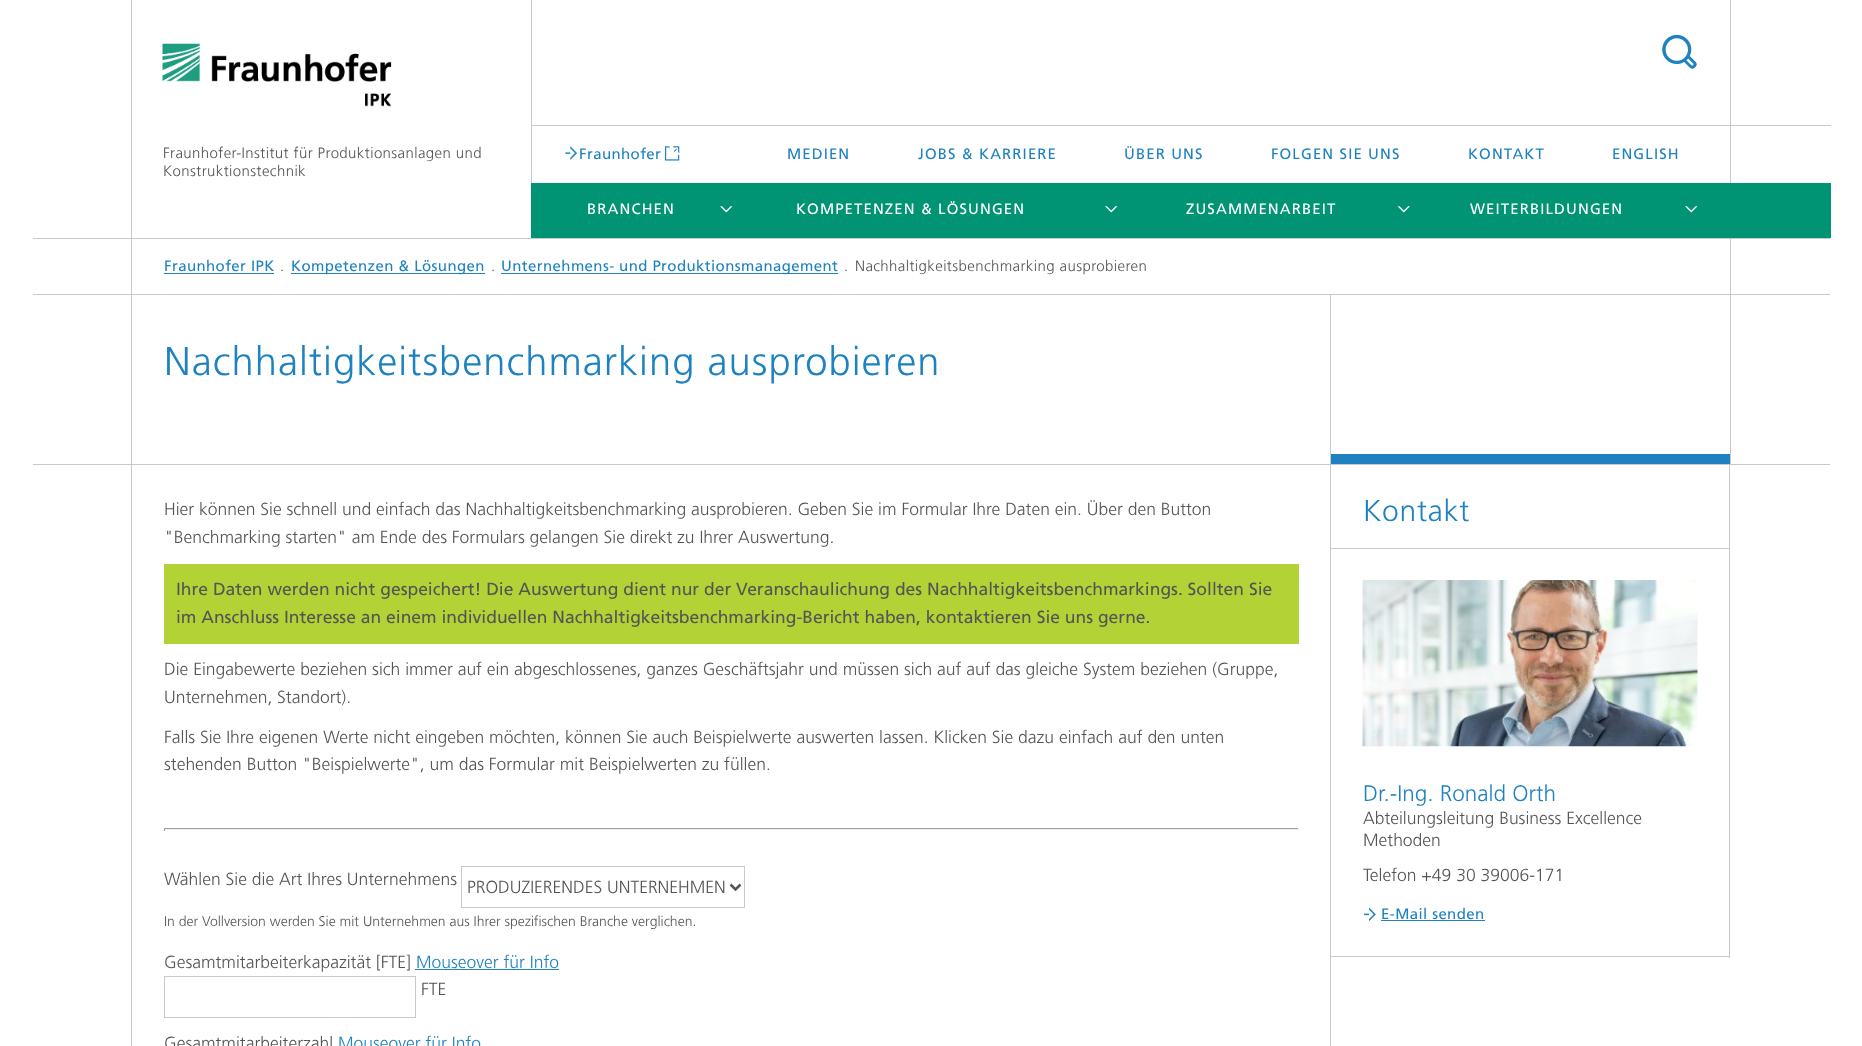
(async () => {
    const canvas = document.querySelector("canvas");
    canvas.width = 1862;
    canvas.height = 1046;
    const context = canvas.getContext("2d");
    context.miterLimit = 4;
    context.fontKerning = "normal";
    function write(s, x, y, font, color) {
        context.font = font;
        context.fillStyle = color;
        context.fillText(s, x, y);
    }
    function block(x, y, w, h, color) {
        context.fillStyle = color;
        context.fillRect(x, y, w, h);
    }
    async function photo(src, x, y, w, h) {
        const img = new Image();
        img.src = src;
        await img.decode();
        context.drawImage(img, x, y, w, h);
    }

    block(0, 0, 1862, 1046, "rgb(255, 255, 255)");
    await photo("media/1.png", 162, 43, 230, 64);
    await photo("media/2.png", 1662, 34, 35, 35);
    block(531, 125, 1300, 1, "rgb(199, 202, 204)");
    context.letterSpacing = "0.4px";
    write("Fraunhofer-Institut für Produktionsanlagen und", 163, 158, "300 15px Frutiger", "rgb(85, 85, 85)");
    write("Konstruktionstechnik", 163, 176, "300 15px Frutiger", "rgb(85, 85, 85)");
    block(1730, 0, 1, 183, "rgb(199, 202, 204)");
    block(531, 0, 1, 183, "rgb(199, 202, 204)");
    await photo("media/3.png", 565, 146, 12, 14);
    write("Fraunhofer", 579, 159, "15px Frutiger", "rgb(31, 130, 192)");
    await photo("media/4.png", 665, 146, 15, 15);
    context.letterSpacing = "1.1px";
    write("MEDIEN", 787, 159, "15px Frutiger", "rgb(31, 130, 192)");
    write("JOBS & KARRIERE", 918, 159, "15px Frutiger", "rgb(31, 130, 192)");
    write("ÜBER UNS", 1124, 159, "15px Frutiger", "rgb(31, 130, 192)");
    write("FOLGEN SIE UNS", 1271, 159, "15px Frutiger", "rgb(31, 130, 192)");
    write("KONTAKT", 1468, 159, "15px Frutiger", "rgb(31, 130, 192)");
    write("ENGLISH", 1612, 159, "15px Frutiger", "rgb(31, 130, 192)");
    block(531, 183, 1300, 55, "rgb(0, 147, 116)");
    write("BRANCHEN", 587, 214, "15px Frutiger", "rgb(255, 255, 255)");
    await photo("media/5.png", 720, 206, 13, 7);
    write("KOMPETENZEN & LÖSUNGEN", 796, 214, "15px Frutiger", "rgb(255, 255, 255)");
    await photo("media/5.png", 1105, 206, 13, 7);
    write("ZUSAMMENARBEIT", 1186, 214, "15px Frutiger", "rgb(255, 255, 255)");
    await photo("media/6.png", 1397, 206, 13, 7);
    write("WEITERBILDUNGEN", 1470, 214, "15px Frutiger", "rgb(255, 255, 255)");
    await photo("media/5.png", 1685, 206, 13, 7);
    block(131, 0, 1, 1046, "rgb(199, 202, 204)");
    block(33, 238, 100, 1, "rgb(199, 202, 204)");
    block(131, 238, 1699, 1, "rgb(199, 202, 204)");
    block(33, 294, 100, 1, "rgb(199, 202, 204)");
    block(131, 294, 1699, 1, "rgb(199, 202, 204)");
    block(1730, 238, 1, 226, "rgb(199, 202, 204)");
    context.letterSpacing = "0.4px";
    write("Fraunhofer IPK", 164, 271, "15px Frutiger", "rgb(31, 130, 192)");
    block(164, 273, 110, 1, "rgb(31, 130, 192)");
    write(".", 280, 271, "300 15px Frutiger", "rgb(85, 85, 85)");
    block(291, 273, 194, 1, "rgb(31, 130, 192)");
    write("Kompetenzen & Lösungen", 291, 271, "15px Frutiger", "rgb(31, 130, 192)");
    write(".", 491, 271, "300 15px Frutiger", "rgb(85, 85, 85)");
    block(501, 273, 337, 1, "rgb(31, 130, 192)");
    write("Unternehmens- und Produktionsmanagement", 501, 271, "15px Frutiger", "rgb(31, 130, 192)");
    write(".", 844, 271, "300 15px Frutiger", "rgb(85, 85, 85)");
    write("Nachhaltigkeitsbenchmarking ausprobieren", 855, 271, "300 15px Frutiger", "rgb(85, 85, 85)");
    context.letterSpacing = "1px";
    write("Nachhaltigkeitsbenchmarking ausprobieren", 164, 375, "300 40px Frutiger", "rgb(31, 130, 192)");
    block(1331, 454, 399, 10, "rgb(31, 130, 192)");
    block(33, 464, 1298, 1, "rgb(199, 202, 204)");
    block(1331, 464, 499, 1, "rgb(199, 202, 204)");
    block(1330, 295, 1, 751, "rgb(199, 202, 204)");
    context.letterSpacing = "0px";
    write("Hier können Sie schnell und einfach das Nachhaltigkeitsbenchmarking ausprobieren. Geben Sie im Formular Ihre Daten ein. Über den Button", 164, 515, "300 17.5px Frutiger", "rgb(85, 85, 85)");
    write("\"Benchmarking starten\" am Ende des Formulars gelangen Sie direkt zu Ihrer Auswertung.", 164, 543, "300 17.5px Frutiger", "rgb(85, 85, 85)");
    block(164, 564, 1135, 80, "rgb(178, 210, 53)");
    write("Ihre Daten werden nicht gespeichert! Die Auswertung dient nur der Veranschaulichung des Nachhaltigkeitsbenchmarkings. Sollten Sie", 176, 595, "17.5px Frutiger", "rgb(85, 85, 85)");
    write("im Anschluss Interesse an einem individuellen Nachhaltigkeitsbenchmarking-Bericht haben, kontaktieren Sie uns gerne.", 176, 623, "17.5px Frutiger", "rgb(85, 85, 85)");
    write("Die Eingabewerte beziehen sich immer auf ein abgeschlossenes, ganzes Geschäftsjahr und müssen sich auf auf das gleiche System beziehen (Gruppe,", 164, 675, "300 17.5px Frutiger", "rgb(85, 85, 85)");
    write("Unternehmen, Standort).", 164, 703, "300 17.5px Frutiger", "rgb(85, 85, 85)");
    write("Falls Sie Ihre eigenen Werte nicht eingeben möchten, können Sie auch Beispielwerte auswerten lassen. Klicken Sie dazu einfach auf den unten", 164, 743, "300 17.5px Frutiger", "rgb(85, 85, 85)");
    write("stehenden Button \"Beispielwerte\", um das Formular mit Beispielwerten zu füllen.", 164, 770, "300 17.5px Frutiger", "rgb(85, 85, 85)");
    block(164, 828, 1135, 1, "rgb(159, 159, 159)");
    block(1298, 828, 1, 3, "rgb(238, 238, 238)");
    block(164, 829, 1135, 1, "rgb(238, 238, 238)");
    block(164, 828, 1, 3, "rgb(159, 159, 159)");
    write("Wählen Sie die Art Ihres Unternehmens", 164, 885, "300 17.5px Frutiger", "rgb(85, 85, 85)");
    context.beginPath();
    context.moveTo(730.5, 884.5);
    context.lineTo(735.5, 889.5);
    context.lineTo(740.5, 884.5);
    context.strokeStyle = "rgb(85, 85, 85)";
    context.lineWidth = 2.5;
    context.stroke();
    context.strokeStyle = "rgb(199, 202, 204)";
    context.lineWidth = 1;
    context.strokeRect(461.5, 866.5, 283, 41);
    write("PRODUZIERENDES UNTERNEHMEN", 467, 893, "300 17.5px Frutiger", "rgb(85, 85, 85)");
    write("In der Vollversion werden Sie mit Unternehmen aus Ihrer spezifischen Branche verglichen.", 164, 926, "300 14px Frutiger", "rgb(85, 85, 85)");
    write("Gesamtmitarbeiterkapazität [FTE]", 164, 968, "300 17.5px Frutiger", "rgb(85, 85, 85)");
    write("Mouseover für Info", 416, 968, "300 17.5px Frutiger", "rgb(31, 130, 192)");
    block(415, 969, 144, 1, "rgb(31, 130, 192)");
    context.strokeRect(164.5, 976.5, 251, 41);
    write("FTE", 421, 995, "300 17.5px Frutiger", "rgb(85, 85, 85)");
    write("Gesamtmitarbeiterzahl", 164, 1049, "300 17.5px Frutiger", "rgb(85, 85, 85)");
    write("Mouseover für Info", 338, 1049, "300 17.5px Frutiger", "rgb(31, 130, 192)");
    block(1729, 464, 1, 494, "rgb(199, 202, 204)");
    block(1331, 956, 399, 1, "rgb(199, 202, 204)");
    block(1331, 548, 398, 1, "rgb(199, 202, 204)");
    context.letterSpacing = "0.75px";
    write("Kontakt", 1363, 521, "300 30px Frutiger", "rgb(31, 130, 192)");
    await photo("media/7.png", 1362, 580, 336, 167);
    context.letterSpacing = "0px";
    write("Dr.-Ing. Ronald Orth", 1363, 801, "300 22.5px Frutiger", "rgb(31, 130, 192)");
    write("Abteilungsleitung Business Excellence", 1363, 824, "300 17.5px Frutiger", "rgb(85, 85, 85)");
    write("Methoden", 1363, 846, "300 17.5px Frutiger", "rgb(85, 85, 85)");
    write("Telefon +49 30 39006-171", 1363, 881, "300 17.5px Frutiger", "rgb(85, 85, 85)");
    await photo("media/8.png", 1364, 907, 12, 15);
    context.letterSpacing = "0.4px";
    write("E-Mail senden", 1381, 919, "15px Frutiger", "rgb(31, 130, 192)");
    block(1381, 920, 104, 1, "rgb(31, 130, 192)");
})();
